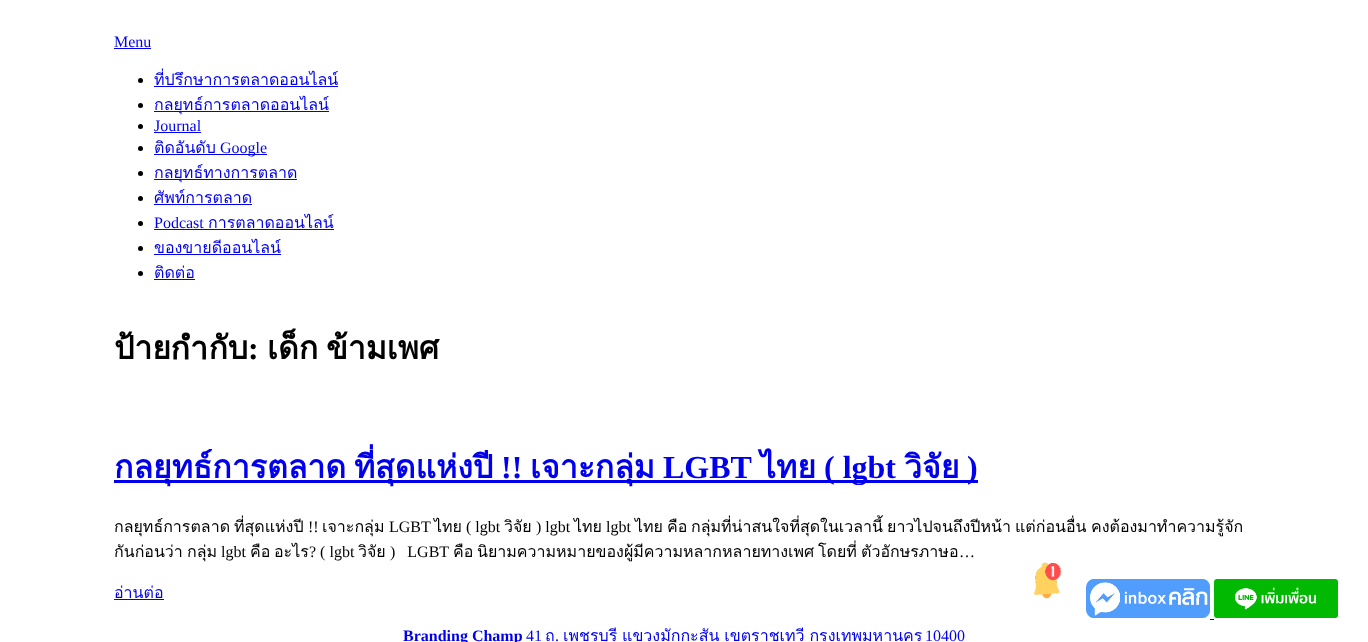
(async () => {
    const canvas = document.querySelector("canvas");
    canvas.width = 1368;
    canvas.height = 642;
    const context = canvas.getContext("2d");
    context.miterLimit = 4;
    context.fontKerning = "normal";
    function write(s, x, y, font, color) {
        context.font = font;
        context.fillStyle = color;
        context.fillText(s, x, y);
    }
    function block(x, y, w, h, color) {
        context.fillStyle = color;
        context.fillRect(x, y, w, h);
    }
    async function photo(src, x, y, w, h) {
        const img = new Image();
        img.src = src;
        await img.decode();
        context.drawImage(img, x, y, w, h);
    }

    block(0, 0, 1368, 642, "rgb(255, 255, 255)");
    write("Menu", 114, 47, "16px Liberation Serif", "rgb(0, 0, 238)");
    block(114, 48, 37, 1, "rgb(0, 0, 238)");
    context.fillStyle = "rgb(0, 0, 0)";
    context.beginPath();
    context.arc(140.5, 80.5, 2.5, 0, Math.PI * 2);
    context.fill();
    write("ที่ปรึกษาการตลาดออนไลน์", 154, 85, "16px Loma", "rgb(0, 0, 238)");
    block(154, 86, 184, 1, "rgb(0, 0, 238)");
    context.fillStyle = "rgb(0, 0, 0)";
    context.beginPath();
    context.arc(140.5, 105.5, 2.5, 0, Math.PI * 2);
    context.fill();
    block(154, 111, 175, 1, "rgb(0, 0, 238)");
    write("กลยุทธ์การตลาดออนไลน์", 154, 110, "16px Loma", "rgb(0, 0, 238)");
    context.fillStyle = "rgb(0, 0, 0)";
    context.beginPath();
    context.arc(140.5, 126.5, 2.5, 0, Math.PI * 2);
    context.fill();
    write("Journal", 154, 131, "16px Liberation Serif", "rgb(0, 0, 238)");
    block(154, 132, 47, 1, "rgb(0, 0, 238)");
    context.fillStyle = "rgb(0, 0, 0)";
    context.beginPath();
    context.arc(140.5, 148.5, 2.5, 0, Math.PI * 2);
    context.fill();
    write("ติดอันดับ", 154, 153, "16px Loma", "rgb(0, 0, 238)");
    block(154, 154, 113, 1, "rgb(0, 0, 238)");
    write("Google", 220, 153, "16px Liberation Serif", "rgb(0, 0, 238)");
    context.fillStyle = "rgb(0, 0, 0)";
    context.beginPath();
    context.arc(140.5, 173.5, 2.5, 0, Math.PI * 2);
    context.fill();
    block(154, 179, 143, 1, "rgb(0, 0, 238)");
    write("กลยุทธ์ทางการตลาด", 154, 178, "16px Loma", "rgb(0, 0, 238)");
    context.fillStyle = "rgb(0, 0, 0)";
    context.beginPath();
    context.arc(140.5, 198.5, 2.5, 0, Math.PI * 2);
    context.fill();
    write("ศัพท์การตลาด", 154, 203, "16px Loma", "rgb(0, 0, 238)");
    block(154, 204, 98, 1, "rgb(0, 0, 238)");
    context.fillStyle = "rgb(0, 0, 0)";
    context.beginPath();
    context.arc(140.5, 223.5, 2.5, 0, Math.PI * 2);
    context.fill();
    write("Podcast", 154, 228, "16px Liberation Serif", "rgb(0, 0, 238)");
    block(154, 229, 180, 1, "rgb(0, 0, 238)");
    write("การตลาดออนไลน์", 208, 228, "16px Loma", "rgb(0, 0, 238)");
    context.fillStyle = "rgb(0, 0, 0)";
    context.beginPath();
    context.arc(140.5, 248.5, 2.5, 0, Math.PI * 2);
    context.fill();
    write("ของขายดีออนไลน์", 154, 253, "16px Loma", "rgb(0, 0, 238)");
    block(154, 254, 127, 1, "rgb(0, 0, 238)");
    context.fillStyle = "rgb(0, 0, 0)";
    context.beginPath();
    context.arc(140.5, 273.5, 2.5, 0, Math.PI * 2);
    context.fill();
    write("ติดต่อ", 154, 278, "16px Loma", "rgb(0, 0, 238)");
    block(154, 279, 41, 1, "rgb(0, 0, 238)");
    write("ป้ายกำกับ", 114, 359, "bold 32px Loma", "rgb(0, 0, 0)");
    write(":", 248, 359, "bold 32px Liberation Serif", "rgb(0, 0, 0)");
    context.wordSpacing = "-3px";
    write("เด็ก ข้ามเพศ", 267, 359, "bold 32px Loma", "rgb(0, 0, 0)");
    block(114, 480, 864, 3, "rgb(0, 0, 238)");
    context.wordSpacing = "0px";
    write("กลยุทธ์การตลาด", 114, 478, "bold 32px Loma", "rgb(0, 0, 238)");
    write("ที่สุดแห่งปี", 354, 478, "bold 32px Loma", "rgb(0, 0, 238)");
    write("!!", 501, 478, "bold 32px Liberation Serif", "rgb(0, 0, 238)");
    write("เจาะกลุ่ม", 530, 478, "bold 32px Loma", "rgb(0, 0, 238)");
    write("LGBT", 663, 478, "bold 32px Liberation Serif", "rgb(0, 0, 238)");
    write("ไทย", 760, 478, "bold 32px Loma", "rgb(0, 0, 238)");
    write("( lgbt", 824, 478, "bold 32px Liberation Serif", "rgb(0, 0, 238)");
    write("วิจัย", 904, 478, "bold 32px Loma", "rgb(0, 0, 238)");
    write(")", 967, 478, "bold 32px Liberation Serif", "rgb(0, 0, 238)");
    write("กลยุทธ์การตลาด", 114, 532, "16px Loma", "rgb(0, 0, 0)");
    write("ที่สุดแห่งปี", 234, 532, "16px Loma", "rgb(0, 0, 0)");
    write("!!", 308, 532, "16px Liberation Serif", "rgb(0, 0, 0)");
    write("เจาะกลุ่ม", 322, 532, "16px Loma", "rgb(0, 0, 0)");
    write("LGBT", 389, 532, "16px Liberation Serif", "rgb(0, 0, 0)");
    write("ไทย", 434, 532, "16px Loma", "rgb(0, 0, 0)");
    write("( lgbt", 466, 532, "16px Liberation Serif", "rgb(0, 0, 0)");
    write("วิจัย", 504, 532, "16px Loma", "rgb(0, 0, 0)");
    write(") lgbt", 536, 532, "16px Liberation Serif", "rgb(0, 0, 0)");
    write("ไทย", 574, 532, "16px Loma", "rgb(0, 0, 0)");
    write("lgbt", 606, 532, "16px Liberation Serif", "rgb(0, 0, 0)");
    write("ไทย", 635, 532, "16px Loma", "rgb(0, 0, 0)");
    write("คือ", 667, 532, "16px Loma", "rgb(0, 0, 0)");
    write("กลุ่มที่น่าสนใจที่สุดในเวลานี้", 691, 532, "16px Loma", "rgb(0, 0, 0)");
    write("ยาวไปจนถึงปีหน้า", 887, 532, "16px Loma", "rgb(0, 0, 0)");
    write("แต่ก่อนอื่น", 1015, 532, "16px Loma", "rgb(0, 0, 0)");
    write("คงต้องมาทำความรู้จัก", 1091, 532, "16px Loma", "rgb(0, 0, 0)");
    write("กันก่อนว่า", 114, 557, "16px Loma", "rgb(0, 0, 0)");
    write("กลุ่ม", 187, 557, "16px Loma", "rgb(0, 0, 0)");
    write("lgbt", 221, 557, "16px Liberation Serif", "rgb(0, 0, 0)");
    write("คือ", 250, 557, "16px Loma", "rgb(0, 0, 0)");
    write("อะไร", 274, 557, "16px Loma", "rgb(0, 0, 0)");
    write("? ( lgbt", 309, 557, "16px Liberation Serif", "rgb(0, 0, 0)");
    write("วิจัย", 358, 557, "16px Loma", "rgb(0, 0, 0)");
    write(")   LGBT", 390, 557, "16px Liberation Serif", "rgb(0, 0, 0)");
    write("คือ", 453, 557, "16px Loma", "rgb(0, 0, 0)");
    write("นิยามความหมายของผู้มีความหลากหลายทางเพศ", 477, 557, "16px Loma", "rgb(0, 0, 0)");
    write("โดยที่", 818, 557, "16px Loma", "rgb(0, 0, 0)");
    write("ตัวอักษรภาษอ", 861, 557, "16px Loma", "rgb(0, 0, 0)");
    write("…", 959, 557, "16px Liberation Serif", "rgb(0, 0, 0)");
    write("อ่านต่อ", 114, 598, "16px Loma", "rgb(0, 0, 238)");
    block(114, 599, 50, 1, "rgb(0, 0, 238)");
    await photo("media/1.png", 1033, 562, 29, 37);
    await photo("media/2.png", 1086, 579, 124, 39);
    await photo("media/3.png", 1214, 579, 124, 39);
    block(1210, 619, 4, 1, "rgb(0, 0, 238)");
    write("Branding Champ", 403, 641, "bold 16px Liberation Serif", "rgb(0, 0, 238)");
    write("41", 526, 641, "16px Liberation Serif", "rgb(0, 0, 238)");
    write("ถ", 545, 641, "16px Loma", "rgb(0, 0, 238)");
    write(".", 555, 641, "16px Liberation Serif", "rgb(0, 0, 238)");
    context.wordSpacing = "-0.5px";
    write("เพชรบุรี แขวงมักกะสัน เขตราชเทวี กรุงเทพมหานคร", 563, 641, "16px Loma", "rgb(0, 0, 238)");
    context.wordSpacing = "0px";
    write("10400", 925, 641, "16px Liberation Serif", "rgb(0, 0, 238)");
})();
